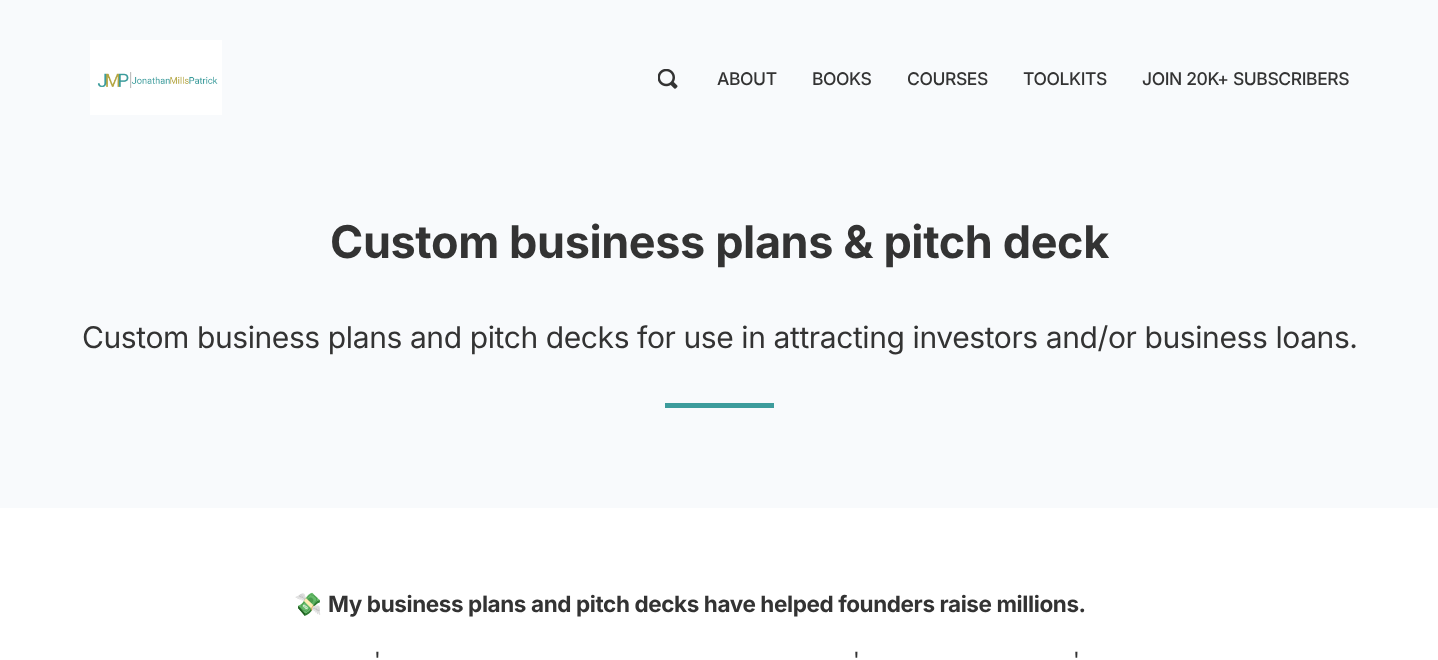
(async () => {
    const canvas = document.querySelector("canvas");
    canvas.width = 1438;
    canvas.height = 660;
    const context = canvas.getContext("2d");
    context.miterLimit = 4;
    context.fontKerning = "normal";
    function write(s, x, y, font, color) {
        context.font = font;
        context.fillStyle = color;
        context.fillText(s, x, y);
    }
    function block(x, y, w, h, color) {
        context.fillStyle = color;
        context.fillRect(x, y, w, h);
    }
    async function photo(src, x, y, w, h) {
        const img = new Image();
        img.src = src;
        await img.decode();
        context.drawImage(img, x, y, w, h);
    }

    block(0, 0, 1438, 660, "rgb(255, 255, 255)");
    block(0, 0, 1438, 508, "rgb(248, 250, 252)");
    await photo("media/1.png", 90, 40, 132, 75);
    await photo("media/2.png", 658, 69, 20, 20);
    context.letterSpacing = "-0.4px";
    write("ABOUT", 717, 85, "500 17.5px Inter", "rgb(51, 51, 51)");
    write("BOOKS", 812, 85, "500 17.5px Inter", "rgb(51, 51, 51)");
    write("COURSES", 907, 85, "500 17.5px Inter", "rgb(51, 51, 51)");
    write("TOOLKITS", 1023, 85, "500 17.5px Inter", "rgb(51, 51, 51)");
    write("JOIN 20K+ SUBSCRIBERS", 1142, 85, "500 17.5px Inter", "rgb(51, 51, 51)");
    write("Custom business plans & pitch deck", 330, 258, "bold 45px Inter", "rgb(51, 51, 51)");
    write("Custom business plans and pitch decks for use in attracting investors and/or business loans.", 82, 348, "30px Inter", "rgb(51, 51, 51)");
    block(665, 403, 109, 5, "rgb(61, 156, 156)");
    write("💸", 294, 612, "22.5px Noto Color Emoji", "rgb(51, 51, 51)");
    write("My business plans and pitch decks have helped founders raise millions.", 328, 612, "bold 22.5px Inter", "rgb(51, 51, 51)");
    write("'", 374, 668, "22.5px Inter", "rgb(51, 51, 51)");
    write("'", 853, 668, "22.5px Inter", "rgb(51, 51, 51)");
    write("'", 1073, 668, "22.5px Inter", "rgb(51, 51, 51)");
})();
